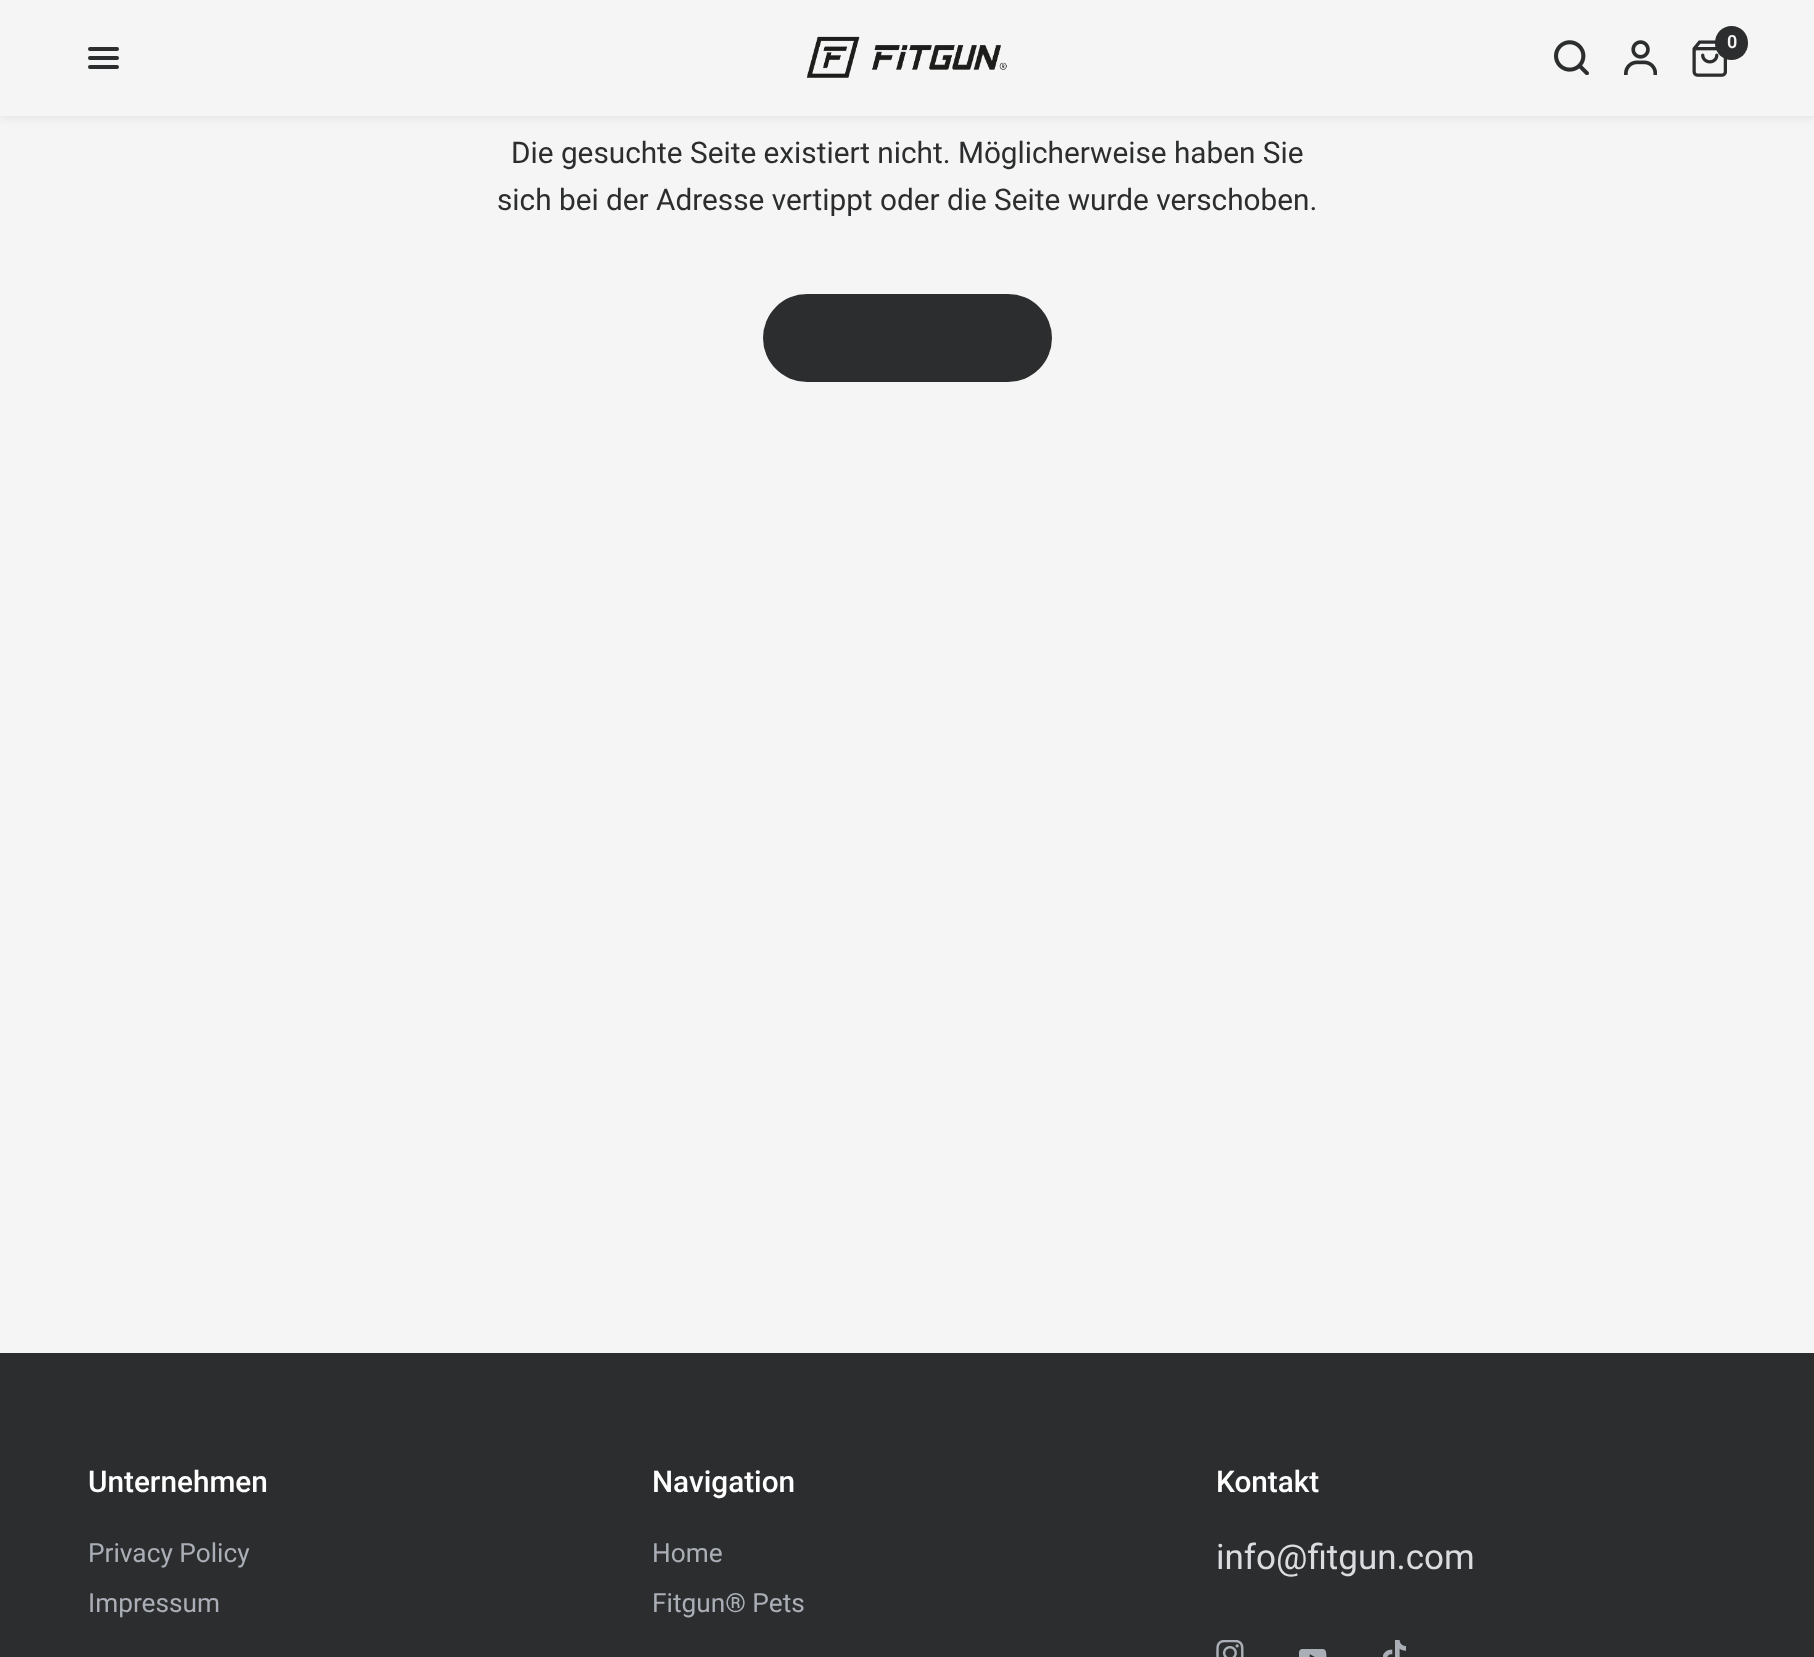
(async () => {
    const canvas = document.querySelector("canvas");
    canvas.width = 1814;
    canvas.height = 1657;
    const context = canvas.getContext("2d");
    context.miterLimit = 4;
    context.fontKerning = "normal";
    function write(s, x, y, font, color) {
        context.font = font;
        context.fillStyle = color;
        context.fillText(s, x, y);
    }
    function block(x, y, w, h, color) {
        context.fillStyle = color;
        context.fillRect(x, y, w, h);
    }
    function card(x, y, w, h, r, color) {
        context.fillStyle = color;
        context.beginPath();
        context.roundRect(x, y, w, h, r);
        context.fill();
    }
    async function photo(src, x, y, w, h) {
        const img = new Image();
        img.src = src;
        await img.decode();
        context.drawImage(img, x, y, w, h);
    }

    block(0, 0, 1814, 1657, "rgb(245, 245, 245)");
    context.save();
    context.beginPath();
    context.moveTo(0, 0);
    context.lineTo(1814, 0);
    context.lineTo(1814, 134);
    context.lineTo(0, 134);
    context.closePath();
    context.moveTo(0, 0);
    context.lineTo(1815, 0);
    context.lineTo(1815, 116);
    context.lineTo(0, 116);
    context.closePath();
    context.clip("evenodd");
    context.fillStyle = "rgba(0, 0, 0, 0.06)";
    context.filter = "blur(4.5px)";
    context.beginPath();
    context.rect(0, 4, 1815, 115);
    context.fill();
    context.filter = "none";
    context.restore();
    card(88, 47, 31, 4, 2, "rgb(44, 45, 46)");
    card(88, 56, 31, 4, 2, "rgb(44, 45, 46)");
    card(88, 65, 31, 4, 2, "rgb(44, 45, 46)");
    await photo("media/1.png", 806, 36, 201, 42);
    await photo("media/2.png", 1554, 40, 35, 35);
    await photo("media/3.png", 1624, 40, 33, 35);
    await photo("media/4.png", 1692, 40, 35, 37);
    card(1715, 26, 33, 34, 16.5, "rgb(44, 45, 46)");
    write("0", 1727, 48, "600 18px Roboto", "rgb(245, 245, 245)");
    write("Die gesuchte Seite existiert nicht. Möglicherweise haben Sie", 511, 163, "29.75px Roboto", "rgb(44, 45, 46)");
    write("sich bei der Adresse vertippt oder die Seite wurde verschoben.", 497, 210, "29.75px Roboto", "rgb(44, 45, 46)");
    card(763, 294, 289, 88, 44, "rgb(44, 45, 46)");
    block(0, 1353, 1814, 304, "rgb(44, 45, 46)");
    write("Unternehmen", 88, 1492, "500 29.75px Roboto", "rgb(255, 255, 255)");
    write("Privacy Policy", 88, 1562, "26.25px Roboto", "rgb(170, 174, 182)");
    write("Impressum", 88, 1612, "26.25px Roboto", "rgb(170, 174, 182)");
    write("Navigation", 652, 1492, "500 29.75px Roboto", "rgb(255, 255, 255)");
    write("Home", 652, 1562, "26.25px Roboto", "rgb(170, 174, 182)");
    write("Fitgun® Pets", 652, 1612, "26.25px Roboto", "rgb(170, 174, 182)");
    write("Kontakt", 1216, 1492, "500 29.75px Roboto", "rgb(255, 255, 255)");
    write("info@fitgun.com", 1216, 1569, "35px Roboto", "rgb(218, 220, 224)");
    await photo("media/5.png", 1216, 1640, 28, 17);
    await photo("media/6.png", 1299, 1649, 28, 8);
    await photo("media/7.png", 1383, 1640, 24, 17);
})();
